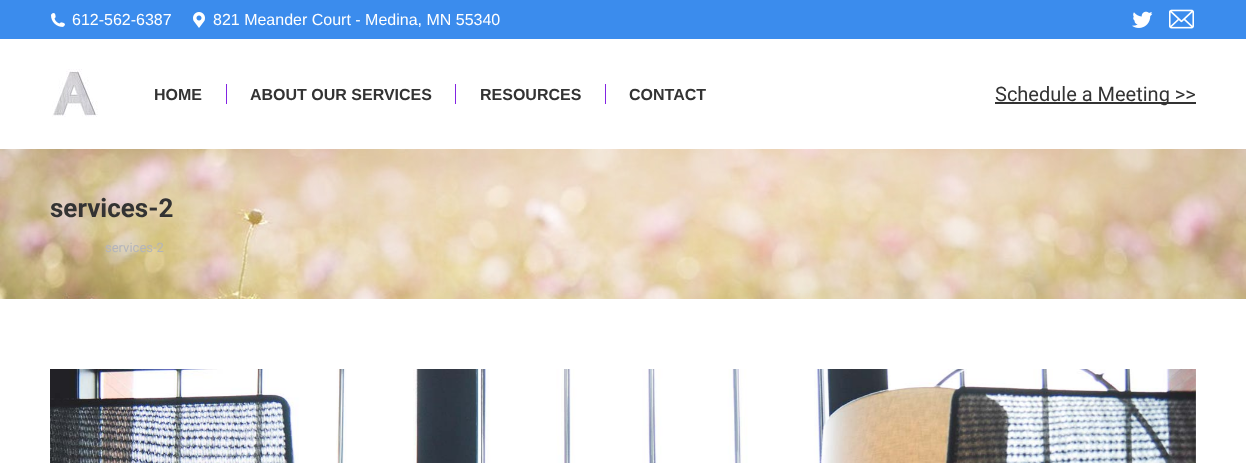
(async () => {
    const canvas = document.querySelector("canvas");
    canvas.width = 1246;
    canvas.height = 463;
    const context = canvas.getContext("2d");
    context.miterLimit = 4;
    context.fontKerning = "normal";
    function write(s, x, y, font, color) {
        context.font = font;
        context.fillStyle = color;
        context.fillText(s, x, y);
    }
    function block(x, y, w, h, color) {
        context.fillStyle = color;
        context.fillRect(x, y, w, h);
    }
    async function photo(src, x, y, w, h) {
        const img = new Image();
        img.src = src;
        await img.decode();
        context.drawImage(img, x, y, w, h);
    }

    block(0, 0, 1246, 463, "rgb(255, 255, 255)");
    block(0, 0, 1246, 39, "rgb(59, 140, 237)");
    await photo("media/1.png", 51, 13, 14, 14);
    write("612-562-6387", 72, 25, "16px Liberation Sans", "rgb(255, 255, 255)");
    await photo("media/2.png", 193, 12, 12, 16);
    write("821 Meander Court - Medina, MN 55340", 213, 25, "16px Liberation Sans", "rgb(255, 255, 255)");
    await photo("media/3.png", 1132, 11, 21, 17);
    await photo("media/4.png", 1169, 9, 25, 20);
    await photo("media/5.png", 52, 69, 46, 48);
    write("HOME", 154, 100, "bold 16px Liberation Sans", "rgb(51, 51, 51)");
    block(226, 84, 1, 20, "rgb(130, 36, 227)");
    write("ABOUT OUR SERVICES", 250, 100, "bold 16px Liberation Sans", "rgb(51, 51, 51)");
    block(455, 84, 1, 20, "rgb(130, 36, 227)");
    write("RESOURCES", 480, 100, "bold 16px Liberation Sans", "rgb(51, 51, 51)");
    block(605, 84, 1, 20, "rgb(130, 36, 227)");
    write("CONTACT", 629, 100, "bold 16px Liberation Sans", "rgb(51, 51, 51)");
    block(995, 102, 201, 2, "rgb(51, 51, 51)");
    write("Schedule a Meeting >>", 995, 101, "20px Roboto", "rgb(51, 51, 51)");
    await photo("media/6.png", 0, 149, 1246, 150);
    write("services-2", 50, 217, "bold 26px Roboto", "rgb(51, 51, 51)");
    write("services-2", 105, 252, "13px Roboto", "rgb(180, 181, 187)");
    await photo("media/7.png", 50, 369, 1146, 94);
})();
